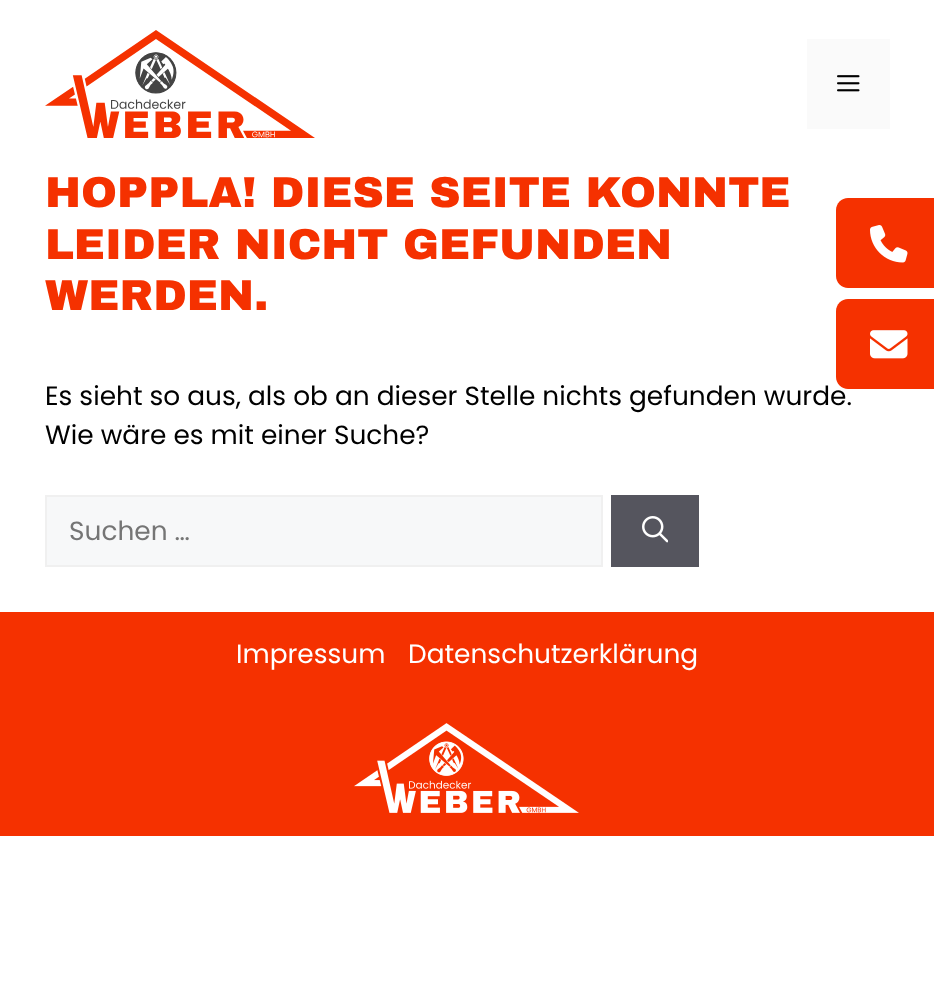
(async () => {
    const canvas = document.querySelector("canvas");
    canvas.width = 934;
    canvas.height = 991;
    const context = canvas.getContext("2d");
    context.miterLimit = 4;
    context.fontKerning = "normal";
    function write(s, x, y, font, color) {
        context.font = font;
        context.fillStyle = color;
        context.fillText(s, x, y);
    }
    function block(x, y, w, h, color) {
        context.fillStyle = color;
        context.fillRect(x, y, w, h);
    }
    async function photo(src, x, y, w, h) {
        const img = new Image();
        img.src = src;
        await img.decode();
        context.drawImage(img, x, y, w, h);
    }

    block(0, 0, 934, 991, "rgb(255, 255, 255)");
    await photo("media/1.png", 45, 30, 270, 108);
    block(807, 39, 83, 90, "rgb(250, 250, 250)");
    await photo("media/2.png", 837, 75, 23, 17);
    context.fillStyle = "rgb(245, 49, 0)";
    context.beginPath();
    context.moveTo(848, 198);
    context.lineTo(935, 198);
    context.lineTo(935, 288);
    context.lineTo(848, 288);
    context.bezierCurveTo(841.5, 288, 836, 282.5, 836, 276);
    context.lineTo(836, 210);
    context.bezierCurveTo(836, 203.5, 841.5, 198, 848, 198);
    context.closePath();
    context.fill();
    await photo("media/3.png", 870, 225, 38, 38);
    write("Es sieht so aus, als ob an dieser Stelle nichts gefunden wurde.", 45, 405, "26.4px Poppins", "rgb(0, 0, 0)");
    context.fillStyle = "rgb(245, 49, 0)";
    context.beginPath();
    context.moveTo(848, 299);
    context.lineTo(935, 299);
    context.lineTo(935, 389);
    context.lineTo(848, 389);
    context.bezierCurveTo(841.5, 389, 836, 383.5, 836, 377);
    context.lineTo(836, 311);
    context.bezierCurveTo(836, 304.5, 841.5, 299, 848, 299);
    context.closePath();
    context.fill();
    await photo("media/4.png", 870, 330, 38, 29);
    write("HOPPLA! DIESE SEITE KONNTE", 45, 207, "900 43.25px Archivo Black", "rgb(245, 49, 0)");
    write("LEIDER NICHT GEFUNDEN", 45, 259, "900 43.25px Archivo Black", "rgb(245, 49, 0)");
    write("WERDEN.", 45, 310, "900 43.25px Archivo Black", "rgb(245, 49, 0)");
    write("Wie wäre es mit einer Suche?", 45, 444, "26.4px Poppins", "rgb(0, 0, 0)");
    context.fillStyle = "rgb(247, 248, 249)";
    context.beginPath();
    context.rect(46, 496, 556, 70);
    context.fill();
    context.strokeStyle = "rgb(240, 240, 240)";
    context.lineWidth = 2;
    context.stroke();
    write("Suchen …", 69, 540, "26.4px Poppins", "rgb(117, 117, 117)");
    block(611, 495, 88, 72, "rgb(85, 85, 94)");
    await photo("media/5.png", 642, 516, 26, 27);
    block(0, 612, 934, 224, "rgb(245, 49, 0)");
    write("Impressum", 236, 663, "26.4px Poppins", "rgb(255, 255, 255)");
    write("Datenschutzerklärung", 408, 663, "26.4px Poppins", "rgb(255, 255, 255)");
    await photo("media/6.png", 354, 723, 225, 90);
})();
